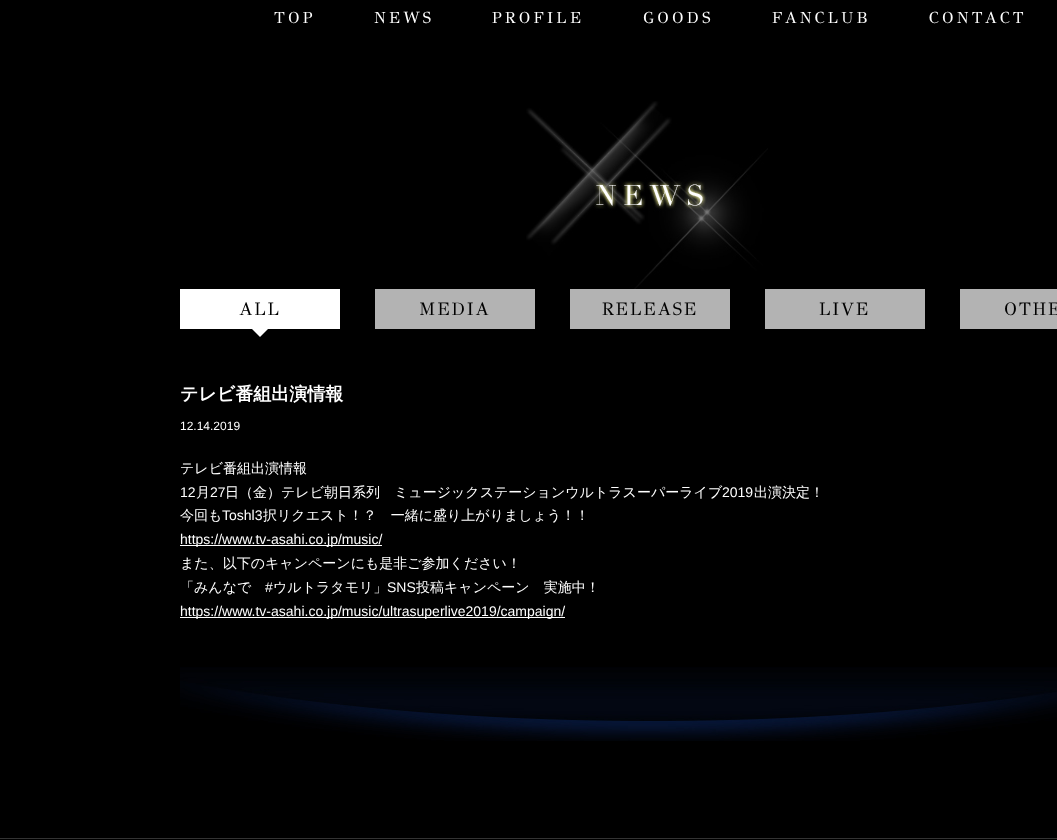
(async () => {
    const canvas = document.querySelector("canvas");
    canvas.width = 1057;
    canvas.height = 840;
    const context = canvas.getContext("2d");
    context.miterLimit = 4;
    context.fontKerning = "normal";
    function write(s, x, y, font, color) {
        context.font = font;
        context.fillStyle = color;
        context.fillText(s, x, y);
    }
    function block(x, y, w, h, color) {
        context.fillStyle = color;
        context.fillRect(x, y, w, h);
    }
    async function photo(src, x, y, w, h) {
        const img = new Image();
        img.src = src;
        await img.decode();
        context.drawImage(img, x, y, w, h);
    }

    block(0, 0, 1057, 840, "rgb(0, 0, 0)");
    context.letterSpacing = "3.25px";
    write("TOP", 274, 23, "16px GFS Didot", "rgb(255, 255, 255)");
    write("NEWS", 374, 23, "16px GFS Didot", "rgb(255, 255, 255)");
    write("PROFILE", 492, 23, "16px GFS Didot", "rgb(255, 255, 255)");
    write("GOODS", 643, 23, "16px GFS Didot", "rgb(255, 255, 255)");
    write("FANCLUB", 772, 23, "16px GFS Didot", "rgb(255, 255, 255)");
    write("CONTACT", 929, 23, "16px GFS Didot", "rgb(255, 255, 255)");
    await photo("media/1.png", 180, 667, 877, 74);
    await photo("media/2.png", 526, 101, 242, 188);
    block(180, 289, 160, 40, "rgb(255, 255, 255)");
    context.letterSpacing = "1.75px";
    write("ALL", 239, 315, "18px GFS Didot", "rgb(0, 0, 0)");
    context.fillStyle = "rgb(255, 255, 255)";
    context.beginPath();
    context.moveTo(250, 327);
    context.lineTo(270, 327);
    context.lineTo(260, 337);
    context.closePath();
    context.fill();
    block(375, 289, 160, 40, "rgb(179, 179, 179)");
    write("MEDIA", 419, 315, "18px GFS Didot", "rgb(0, 0, 0)");
    block(570, 289, 160, 40, "rgb(179, 179, 179)");
    write("RELEASE", 602, 315, "18px GFS Didot", "rgb(0, 0, 0)");
    block(765, 289, 160, 40, "rgb(179, 179, 179)");
    write("LIVE", 819, 315, "18px GFS Didot", "rgb(0, 0, 0)");
    block(960, 289, 97, 40, "rgb(179, 179, 179)");
    write("OTHE", 1004, 315, "18px GFS Didot", "rgb(0, 0, 0)");
    context.letterSpacing = "0px";
    write("テレビ番組出演情報", 180, 400, "bold 18px WenQuanYi Zen Hei", "rgb(255, 255, 255)");
    write("12.14.2019", 180, 430, "12px Liberation Sans", "rgb(255, 255, 255)");
    write("テレビ番組出演情報", 180, 473, "500 14px WenQuanYi Zen Hei", "rgb(255, 255, 255)");
    write("12", 180, 497, "14px Liberation Sans", "rgb(255, 255, 255)");
    write("月", 196, 497, "500 14px WenQuanYi Zen Hei", "rgb(255, 255, 255)");
    write("27", 210, 497, "14px Liberation Sans", "rgb(255, 255, 255)");
    write("日（金）テレビ朝日系列　ミュージックステーションウルトラスーパーライブ", 225, 497, "500 14px WenQuanYi Zen Hei", "rgb(255, 255, 255)");
    write("2019", 722, 497, "14px Liberation Sans", "rgb(255, 255, 255)");
    write("出演決定！", 754, 497, "500 14px WenQuanYi Zen Hei", "rgb(255, 255, 255)");
    write("今回も", 180, 520, "500 14px WenQuanYi Zen Hei", "rgb(255, 255, 255)");
    write("Toshl3", 222, 520, "14px Liberation Sans", "rgb(255, 255, 255)");
    write("択リクエスト！？　一緒に盛り上がりましょう！！", 263, 520, "500 14px WenQuanYi Zen Hei", "rgb(255, 255, 255)");
    block(180, 545, 202, 1, "rgb(255, 255, 255)");
    write("https://www.tv-asahi.co.jp/music/", 180, 544, "14px Liberation Sans", "rgb(255, 255, 255)");
    write("また、以下のキャンペーンにも是非ご参加ください！", 180, 568, "500 14px WenQuanYi Zen Hei", "rgb(255, 255, 255)");
    write("「みんなで", 180, 592, "500 14px WenQuanYi Zen Hei", "rgb(255, 255, 255)");
    write("#", 265, 592, "14px Liberation Sans", "rgb(255, 255, 255)");
    write("ウルトラタモリ」", 273, 592, "500 14px WenQuanYi Zen Hei", "rgb(255, 255, 255)");
    write("SNS", 387, 592, "14px Liberation Sans", "rgb(255, 255, 255)");
    write("投稿キャンペーン　実施中！", 416, 592, "500 14px WenQuanYi Zen Hei", "rgb(255, 255, 255)");
    block(180, 617, 385, 1, "rgb(255, 255, 255)");
    write("https://www.tv-asahi.co.jp/music/ultrasuperlive2019/campaign/", 180, 616, "14px Liberation Sans", "rgb(255, 255, 255)");
    block(0, 838, 1057, 1, "rgb(51, 51, 51)");
})();
